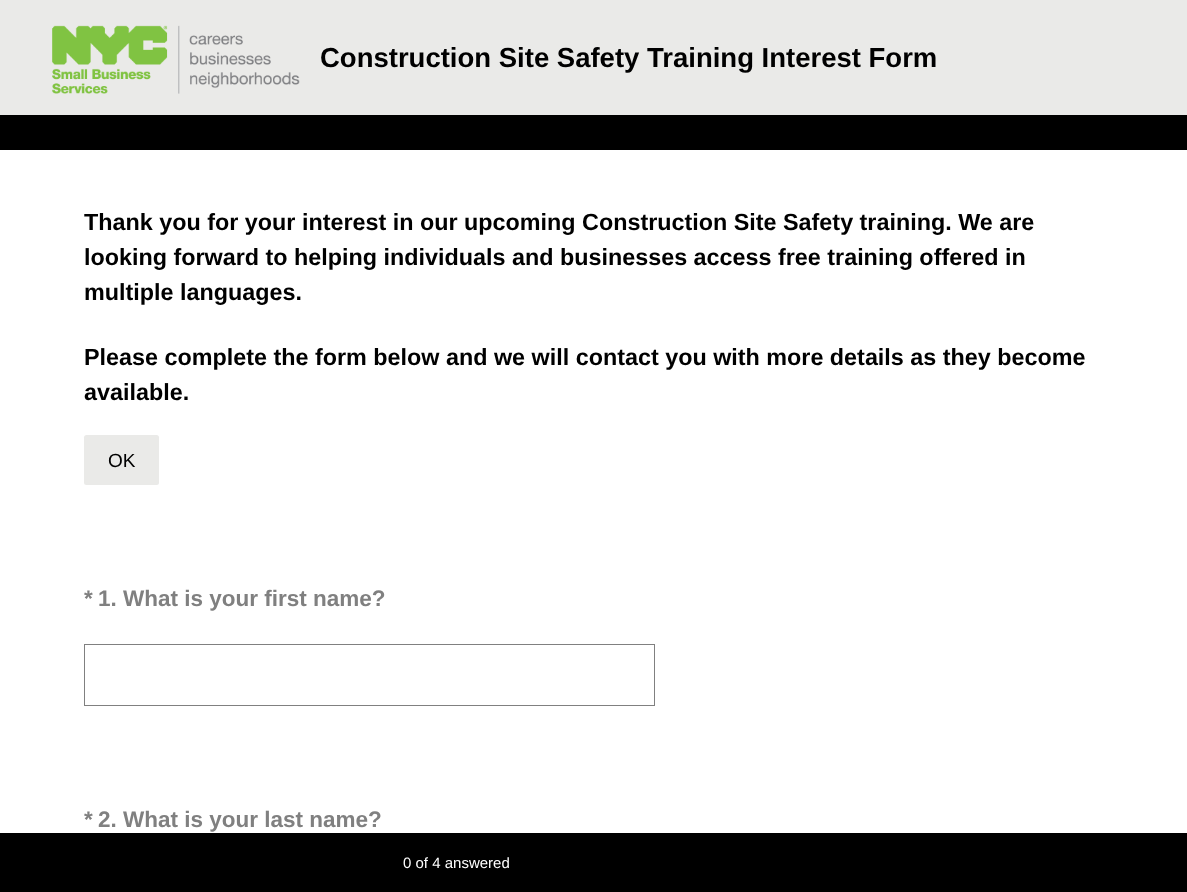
(async () => {
    const canvas = document.querySelector("canvas");
    canvas.width = 1187;
    canvas.height = 892;
    const context = canvas.getContext("2d");
    context.miterLimit = 4;
    context.fontKerning = "normal";
    function write(s, x, y, font, color) {
        context.font = font;
        context.fillStyle = color;
        context.fillText(s, x, y);
    }
    function block(x, y, w, h, color) {
        context.fillStyle = color;
        context.fillRect(x, y, w, h);
    }
    function card(x, y, w, h, r, color) {
        context.fillStyle = color;
        context.beginPath();
        context.roundRect(x, y, w, h, r);
        context.fill();
    }
    async function photo(src, x, y, w, h) {
        const img = new Image();
        img.src = src;
        await img.decode();
        context.drawImage(img, x, y, w, h);
    }

    block(0, 0, 1187, 892, "rgb(255, 255, 255)");
    block(0, 0, 1187, 115, "rgb(234, 234, 232)");
    await photo("media/1.png", 52, 25, 248, 69);
    write("Construction Site Safety Training Interest Form", 320, 67, "bold 27.5px Liberation Sans", "rgb(0, 0, 0)");
    block(0, 115, 1187, 35, "rgb(0, 0, 0)");
    write("Thank you for your interest in our upcoming Construction Site Safety training. We are", 84, 230, "bold 23.35px Liberation Sans", "rgb(0, 0, 0)");
    write("looking forward to helping individuals and businesses access free training offered in", 84, 265, "bold 23.35px Liberation Sans", "rgb(0, 0, 0)");
    write("multiple languages.", 84, 300, "bold 23.35px Liberation Sans", "rgb(0, 0, 0)");
    write("Please complete the form below and we will contact you with more details as they become", 84, 365, "bold 23.35px Liberation Sans", "rgb(0, 0, 0)");
    write("available.", 84, 400, "bold 23.35px Liberation Sans", "rgb(0, 0, 0)");
    card(84, 435, 75, 50, 2.5, "rgb(234, 234, 232)");
    write("OK", 108, 467, "19px Liberation Sans", "rgb(0, 0, 0)");
    write("*", 84, 606, "bold 22.5px Liberation Sans", "rgb(128, 128, 128)");
    write("1.", 98, 606, "bold 22.5px Liberation Sans", "rgb(128, 128, 128)");
    write("What is your first name?", 123, 606, "bold 22.5px Liberation Sans", "rgb(128, 128, 128)");
    context.strokeStyle = "rgb(128, 128, 128)";
    context.strokeRect(84.5, 644.5, 570, 61);
    write("*", 84, 827, "bold 22.5px Liberation Sans", "rgb(128, 128, 128)");
    write("2.", 98, 827, "bold 22.5px Liberation Sans", "rgb(128, 128, 128)");
    write("What is your last name?", 123, 827, "bold 22.5px Liberation Sans", "rgb(128, 128, 128)");
    block(0, 833, 1187, 59, "rgb(0, 0, 0)");
    write("0 of 4 answered", 403, 868, "15px Liberation Sans", "rgb(255, 255, 255)");
})();
